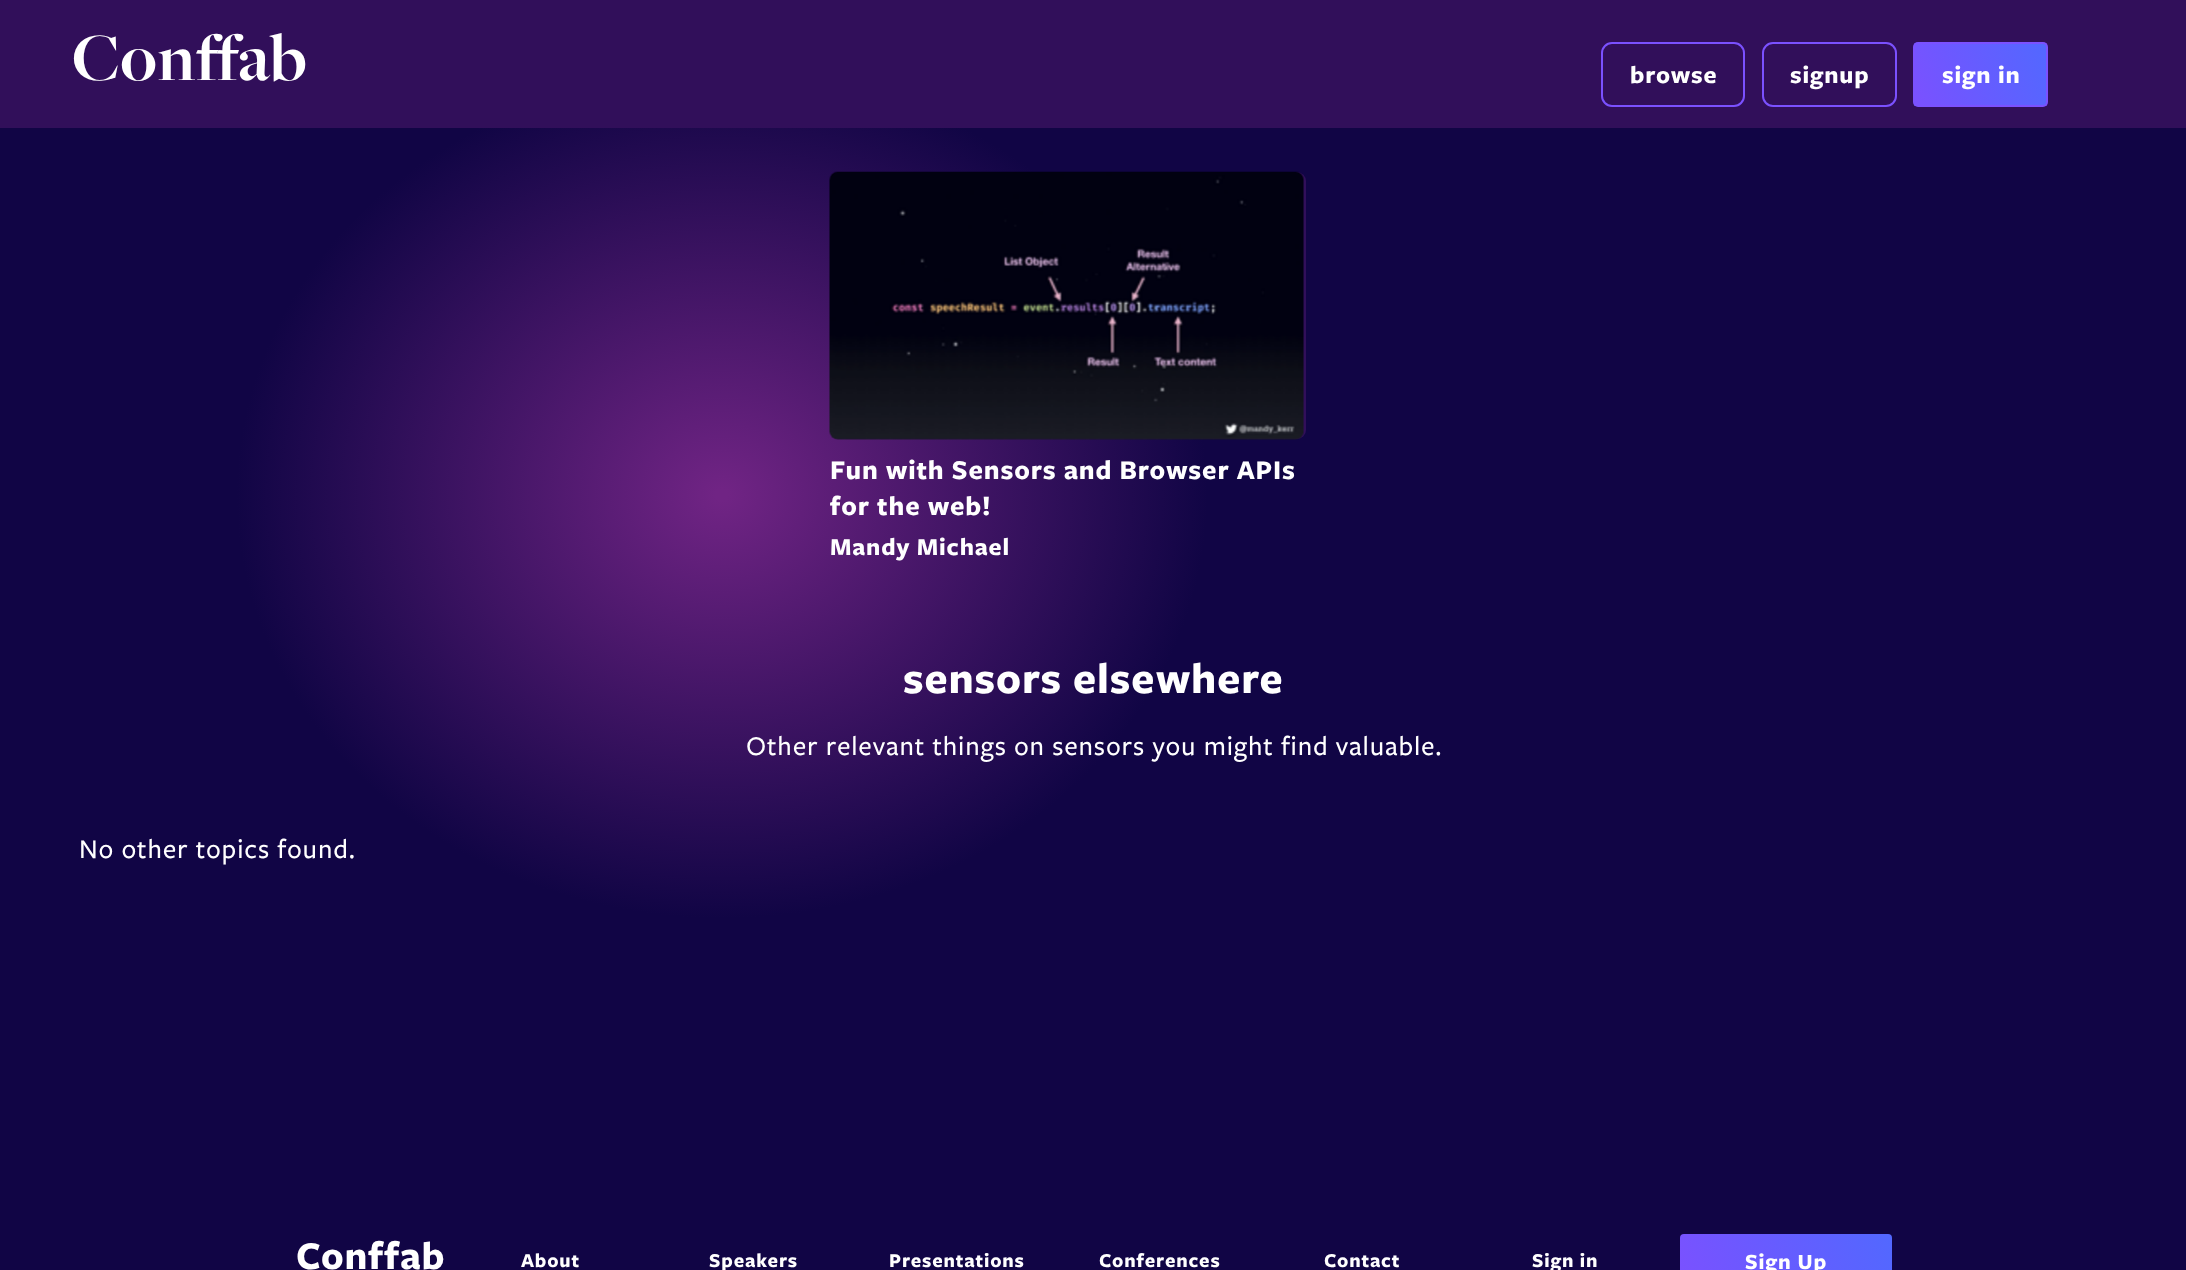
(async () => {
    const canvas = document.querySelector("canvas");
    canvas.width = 2186;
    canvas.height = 1270;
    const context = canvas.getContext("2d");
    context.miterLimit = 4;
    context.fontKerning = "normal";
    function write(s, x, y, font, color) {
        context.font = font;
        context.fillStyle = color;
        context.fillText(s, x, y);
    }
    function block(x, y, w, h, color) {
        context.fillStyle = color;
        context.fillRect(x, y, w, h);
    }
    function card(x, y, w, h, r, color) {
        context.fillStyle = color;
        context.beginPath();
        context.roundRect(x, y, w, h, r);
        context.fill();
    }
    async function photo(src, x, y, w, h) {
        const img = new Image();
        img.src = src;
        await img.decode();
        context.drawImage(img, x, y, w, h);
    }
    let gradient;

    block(0, 0, 2186, 1270, "rgb(255, 255, 255)");
    gradient = context.createRadialGradient(722, 567.69, 0, 722, 567.69, 656);
    gradient.addColorStop(0.01, "rgb(112, 36, 132)");
    gradient.addColorStop(0.74, "rgb(17, 5, 69)");
    context.fillStyle = gradient;
    context.beginPath();
    context.rect(0, 128, 2186, 1142);
    context.save();
    context.clip();
    context.scale(1, 572 / 656);
    context.fillRect(0, 0, 2186, 1457);
    context.restore();
    block(0, 0, 2186, 128, "rgb(49, 15, 90)");
    context.letterSpacing = "0.85px";
    write("Conffab", 72, 80, "bold 70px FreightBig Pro", "rgb(255, 255, 255)");
    context.beginPath();
    context.roundRect(1602, 43, 142, 63, 10);
    context.strokeStyle = "rgb(123, 81, 255)";
    context.lineWidth = 2;
    context.stroke();
    write("browse", 1630, 83, "bold 25.25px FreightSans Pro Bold", "rgb(255, 255, 255)");
    context.beginPath();
    context.roundRect(1763, 43, 133, 63, 10);
    context.stroke();
    write("signup", 1790, 83, "bold 25.25px FreightSans Pro Bold", "rgb(255, 255, 255)");
    context.save();
    context.beginPath();
    context.roundRect(1913, 42, 135, 65, 5);
    context.clip();
    gradient = context.createLinearGradient(1781, 39, 1916, -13);
    gradient.addColorStop(0, "rgb(123, 81, 255)");
    gradient.addColorStop(0.32, "rgb(109, 88, 255)");
    gradient.addColorStop(1, "rgb(82, 104, 255)");
    context.fillStyle = gradient;
    context.fillRect(1913, 43, 2, 1);
    gradient = context.createLinearGradient(2044, 39, 2179, -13);
    gradient.addColorStop(0, "rgb(123, 81, 255)");
    gradient.addColorStop(0.32, "rgb(109, 88, 255)");
    gradient.addColorStop(1, "rgb(82, 104, 255)");
    context.fillStyle = gradient;
    context.fillRect(2046, 43, 2, 1);
    context.restore();
    gradient = context.createLinearGradient(1913, 100, 2048, 48);
    gradient.addColorStop(0, "rgb(123, 81, 255)");
    gradient.addColorStop(0.32, "rgb(109, 88, 255)");
    gradient.addColorStop(1, "rgb(82, 104, 255)");
    context.fillStyle = gradient;
    context.fillRect(1915, 44, 131, 61);
    context.save();
    context.beginPath();
    context.roundRect(1913, 42, 135, 65, 5);
    context.clip();
    gradient = context.createLinearGradient(1781, 162, 1916, 110);
    gradient.addColorStop(0, "rgb(123, 81, 255)");
    gradient.addColorStop(0.32, "rgb(109, 88, 255)");
    gradient.addColorStop(1, "rgb(82, 104, 255)");
    context.fillStyle = gradient;
    context.fillRect(1913, 105, 2, 1);
    gradient = context.createLinearGradient(2044, 162, 2179, 110);
    gradient.addColorStop(0, "rgb(123, 81, 255)");
    gradient.addColorStop(0.32, "rgb(109, 88, 255)");
    gradient.addColorStop(1, "rgb(82, 104, 255)");
    context.fillStyle = gradient;
    context.fillRect(2046, 105, 2, 1);
    context.restore();
    context.beginPath();
    context.roundRect(1914, 43, 133, 63, 4);
    context.stroke();
    write("sign in", 1942, 83, "bold 25.25px FreightSans Pro Bold", "rgb(255, 255, 255)");
    card(830, 172, 476, 267, 9, "rgb(49, 15, 90)");
    await photo("media/1.png", 829, 171, 475, 269);
    write("Fun with Sensors and Browser APIs", 830, 479, "bold 28px FreightSans Pro Bold", "rgb(255, 255, 255)");
    write("for the web!", 830, 515, "bold 28px FreightSans Pro Bold", "rgb(255, 255, 255)");
    write("Mandy Michael", 830, 555, "bold 25.25px FreightSans Pro Bold", "rgb(255, 255, 255)");
    write("sensors elsewhere", 903, 693, "bold 44.75px FreightSans Pro Bold", "rgb(255, 255, 255)");
    write("Other relevant things on sensors you might find valuable.", 746, 755, "500 28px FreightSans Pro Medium", "rgb(255, 255, 255)");
    write("No other topics found.", 79, 858, "500 28px FreightSans Pro Medium", "rgb(255, 255, 255)");
    write("Conffab", 296, 1269, "bold 40.5px FreightSans Pro Bold", "rgb(255, 255, 255)");
    write("About", 521, 1267, "bold 20.25px FreightSans Pro Bold", "rgb(255, 255, 255)");
    write("Speakers", 709, 1267, "bold 20.25px FreightSans Pro Bold", "rgb(255, 255, 255)");
    write("Presentations", 889, 1267, "bold 20.25px FreightSans Pro Bold", "rgb(255, 255, 255)");
    write("Conferences", 1099, 1267, "bold 20.25px FreightSans Pro Bold", "rgb(255, 255, 255)");
    write("Contact", 1324, 1267, "bold 20.25px FreightSans Pro Bold", "rgb(255, 255, 255)");
    write("Sign in", 1532, 1267, "bold 20.25px FreightSans Pro Bold", "rgb(255, 255, 255)");
    gradient = context.createLinearGradient(1684, 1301, 1888, 1223);
    gradient.addColorStop(0, "rgb(123, 81, 255)");
    gradient.addColorStop(0.32, "rgb(109, 88, 255)");
    gradient.addColorStop(1, "rgb(82, 104, 255)");
    context.fillStyle = gradient;
    context.beginPath();
    context.roundRect(1680, 1234, 212, 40, 4);
    context.fill();
    write("Sign Up", 1745, 1269, "bold 22.5px FreightSans Pro Bold", "rgb(255, 255, 255)");
})();
